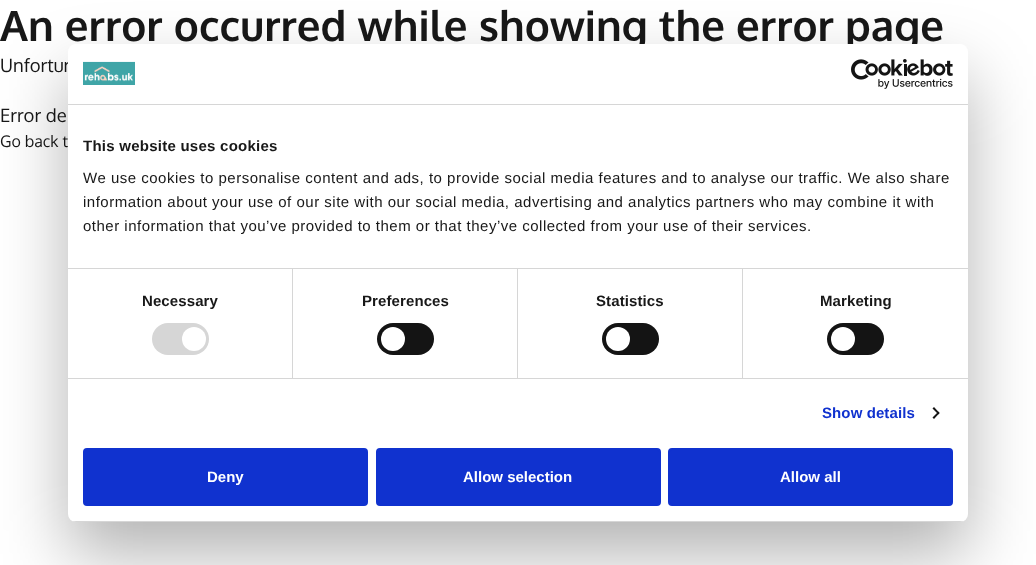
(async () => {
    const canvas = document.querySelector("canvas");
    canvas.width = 1036;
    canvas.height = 565;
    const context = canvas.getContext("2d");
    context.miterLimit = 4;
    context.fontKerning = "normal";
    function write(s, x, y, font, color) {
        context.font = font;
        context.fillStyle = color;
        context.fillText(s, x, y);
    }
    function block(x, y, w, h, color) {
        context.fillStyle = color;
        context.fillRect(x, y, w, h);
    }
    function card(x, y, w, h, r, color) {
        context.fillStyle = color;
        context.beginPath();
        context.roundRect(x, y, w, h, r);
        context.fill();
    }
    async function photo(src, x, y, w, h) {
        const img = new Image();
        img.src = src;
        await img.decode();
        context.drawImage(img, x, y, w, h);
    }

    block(0, 0, 1036, 565, "rgb(255, 255, 255)");
    write("An error occurred while showing the error page", 0, 41, "bold 42.1px Oxygen", "rgb(24, 24, 24)");
    write("Unfortun", 0, 72, "18.5px Oxygen", "rgb(24, 24, 24)");
    write("Error de", 0, 122, "18.5px Oxygen", "rgb(24, 24, 24)");
    write("Go back t", 0, 147, "16px Oxygen", "rgb(24, 24, 24)");
    context.fillStyle = "rgba(0, 0, 0, 0.3)";
    context.filter = "blur(34px)";
    context.beginPath();
    context.roundRect(68, 76, 900, 478, 8);
    context.fill();
    context.filter = "none";
    card(68, 44, 900, 478, 8, "rgb(255, 255, 255)");
    block(68, 104, 900, 1, "rgb(214, 214, 214)");
    await photo("media/1.png", 83, 61, 52, 24);
    await photo("media/2.png", 851, 59, 102, 30);
    block(68, 268, 900, 1, "rgb(214, 214, 214)");
    context.letterSpacing = "0.25px";
    write("This website uses cookies", 83, 151, "bold 15px Liberation Sans", "rgb(24, 24, 24)");
    context.letterSpacing = "0.5px";
    write("We use cookies to personalise content and ads, to provide social media features and to analyse our traffic. We also share", 83, 183, "15px Liberation Sans", "rgb(24, 24, 24)");
    write("information about your use of our site with our social media, advertising and analytics partners who may combine it with", 83, 207, "15px Liberation Sans", "rgb(24, 24, 24)");
    write("other information that you’ve provided to them or that they’ve collected from your use of their services.", 83, 231, "15px Liberation Sans", "rgb(24, 24, 24)");
    block(68, 378, 900, 1, "rgb(214, 214, 214)");
    block(292, 269, 1, 109, "rgb(214, 214, 214)");
    context.letterSpacing = "0.1px";
    write("Necessary", 142, 306, "bold 15px Liberation Sans", "rgb(24, 24, 24)");
    card(152, 323, 57, 32, 16, "rgb(214, 214, 214)");
    context.fillStyle = "rgb(255, 255, 255)";
    context.beginPath();
    context.arc(194, 339, 12, 0, Math.PI * 2);
    context.fill();
    block(517, 269, 1, 109, "rgb(214, 214, 214)");
    write("Preferences", 362, 306, "bold 15px Liberation Sans", "rgb(24, 24, 24)");
    card(377, 323, 57, 32, 16, "rgb(20, 20, 20)");
    context.fillStyle = "rgb(255, 255, 255)";
    context.beginPath();
    context.arc(393, 339, 12, 0, Math.PI * 2);
    context.fill();
    block(742, 269, 1, 109, "rgb(214, 214, 214)");
    write("Statistics", 596, 306, "bold 15px Liberation Sans", "rgb(24, 24, 24)");
    card(602, 323, 57, 32, 16, "rgb(20, 20, 20)");
    context.fillStyle = "rgb(255, 255, 255)";
    context.beginPath();
    context.arc(618, 339, 12, 0, Math.PI * 2);
    context.fill();
    write("Marketing", 820, 306, "bold 15px Liberation Sans", "rgb(24, 24, 24)");
    card(827, 323, 57, 32, 16, "rgb(20, 20, 20)");
    context.fillStyle = "rgb(255, 255, 255)";
    context.beginPath();
    context.arc(843, 339, 12, 0, Math.PI * 2);
    context.fill();
    write("Show details", 822, 418, "bold 15px Liberation Sans", "rgb(16, 50, 207)");
    context.fillStyle = "rgb(20, 20, 20)";
    context.beginPath();
    context.moveTo(934, 407);
    context.lineTo(939.5, 413);
    context.lineTo(938.5, 414.5);
    context.lineTo(932.5, 408.5);
    context.closePath();
    context.fill();
    context.beginPath();
    context.moveTo(938.5, 411.5);
    context.lineTo(939.5, 413);
    context.lineTo(934, 419);
    context.lineTo(932.5, 417.5);
    context.closePath();
    context.fill();
    context.save();
    context.beginPath();
    context.roundRect(68, 44, 900, 478, 8);
    context.clip();
    block(68, 521, 900, 1, "rgb(214, 214, 214)");
    context.restore();
    context.fillStyle = "rgb(16, 50, 207)";
    context.beginPath();
    context.roundRect(84, 449, 283, 56, 3);
    context.fill();
    context.strokeStyle = "rgb(16, 50, 207)";
    context.lineWidth = 2;
    context.stroke();
    context.letterSpacing = "0px";
    write("Deny", 207, 482, "bold 15px Liberation Sans", "rgb(255, 255, 255)");
    context.fillStyle = "rgb(16, 50, 207)";
    context.beginPath();
    context.roundRect(377, 449, 283, 56, 3);
    context.fill();
    context.stroke();
    write("Allow selection", 463, 482, "bold 15px Liberation Sans", "rgb(255, 255, 255)");
    context.fillStyle = "rgb(16, 50, 207)";
    context.beginPath();
    context.roundRect(669, 449, 283, 56, 3);
    context.fill();
    context.stroke();
    write("Allow all", 780, 482, "bold 15px Liberation Sans", "rgb(255, 255, 255)");
})();
